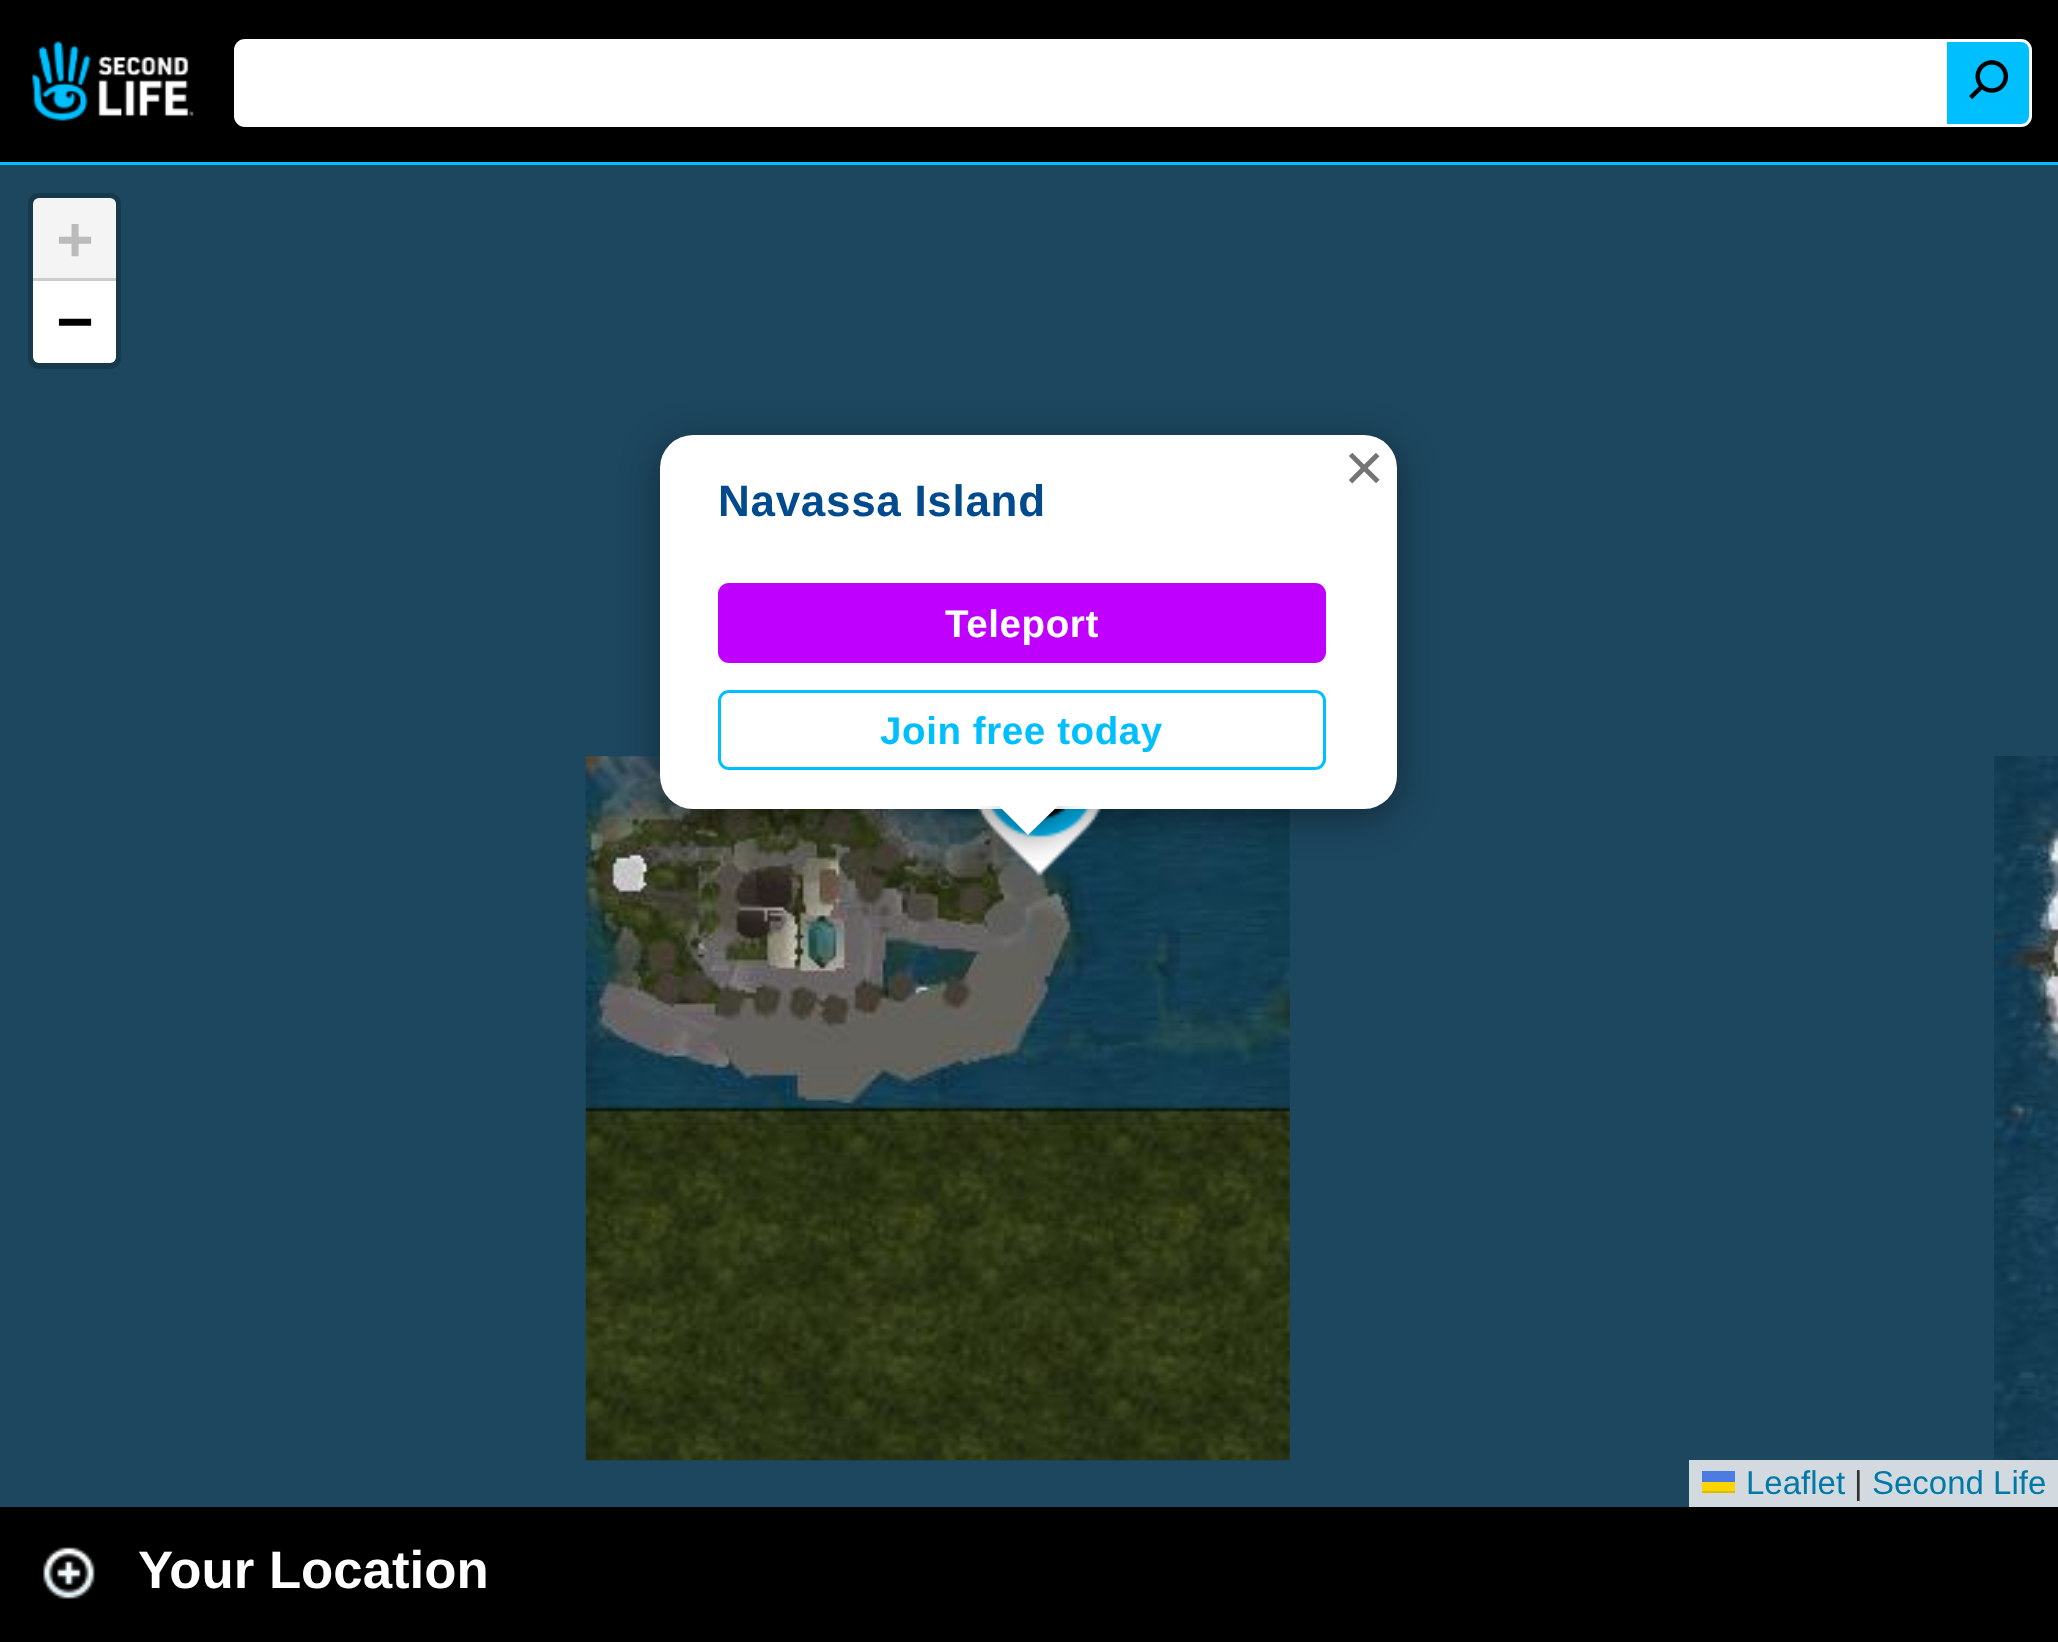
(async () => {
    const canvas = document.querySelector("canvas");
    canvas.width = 2058;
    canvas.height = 1642;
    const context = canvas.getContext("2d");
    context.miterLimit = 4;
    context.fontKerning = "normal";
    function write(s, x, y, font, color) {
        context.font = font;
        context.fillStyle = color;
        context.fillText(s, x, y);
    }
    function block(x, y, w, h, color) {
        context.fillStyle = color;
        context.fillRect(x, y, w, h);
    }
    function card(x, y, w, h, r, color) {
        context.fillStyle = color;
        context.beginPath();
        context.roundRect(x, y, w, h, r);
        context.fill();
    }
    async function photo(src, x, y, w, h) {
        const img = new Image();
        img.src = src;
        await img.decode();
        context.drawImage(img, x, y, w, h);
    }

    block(0, 0, 2058, 1642, "rgb(0, 0, 0)");
    block(0, 162, 2058, 3, "rgb(0, 191, 255)");
    await photo("media/1.png", 32, 41, 162, 80);
    context.fillStyle = "rgb(255, 255, 255)";
    context.beginPath();
    context.roundRect(234, 39, 1721, 88, [11, 0, 0, 11]);
    context.fill();
    context.fillStyle = "rgb(0, 191, 255)";
    context.beginPath();
    context.roundRect(1945.5, 40.5, 85, 85, [0, 9.5, 9.5, 0]);
    context.fill();
    context.strokeStyle = "rgb(255, 255, 255)";
    context.lineWidth = 3;
    context.stroke();
    await photo("media/2.png", 1969, 60, 40, 40);
    block(0, 165, 2058, 1342, "rgb(29, 71, 95)");
    context.beginPath();
    context.roundRect(31, 196, 87, 170, 8);
    context.strokeStyle = "rgb(23, 57, 76)";
    context.lineWidth = 6;
    context.stroke();
    context.fillStyle = "rgb(244, 244, 244)";
    context.beginPath();
    context.roundRect(33, 198, 83, 83, [6, 6, 0, 0]);
    context.fill();
    block(33, 278, 83, 3, "rgb(204, 204, 204)");
    write("+", 57, 259, "bold 60px DejaVu Sans Mono", "rgb(187, 187, 187)");
    context.fillStyle = "rgb(255, 255, 255)";
    context.beginPath();
    context.roundRect(33, 281, 83, 82, [0, 0, 6, 6]);
    context.fill();
    write("−", 57, 341, "bold 60px DejaVu Sans Mono", "rgb(0, 0, 0)");
    block(1689, 1460, 369, 47, "rgb(210, 218, 223)");
    write("Leaflet", 1746, 1494, "33px Liberation Sans", "rgb(0, 120, 168)");
    block(1702, 1471, 33, 11, "rgb(76, 123, 225)");
    block(1702, 1482, 33, 9, "rgb(255, 213, 0)");
    block(1702, 1491, 33, 2, "rgb(224, 188, 0)");
    write("|", 1854, 1494, "33px Liberation Sans", "rgb(51, 51, 51)");
    write("Second Life", 1872, 1494, "33px Liberation Sans", "rgb(0, 120, 168)");
    await photo("media/3.png", 585, 756, 705, 705);
    await photo("media/5.png", 978, 809, 123, 67);
    context.fillStyle = "rgba(0, 0, 0, 0.4)";
    context.filter = "blur(19px)";
    context.beginPath();
    context.roundRect(660, 443, 737, 374, 33);
    context.fill();
    context.filter = "none";
    card(660, 435, 737, 374, 33, "rgb(255, 255, 255)");
    write("×", 1344, 491, "69px Liberation Sans", "rgb(117, 117, 117)");
    context.letterSpacing = "0.7px";
    write("Navassa Island", 718, 516, "bold 44px Liberation Sans", "rgb(1, 74, 142)");
    card(718, 583, 608, 80, 11, "rgb(191, 0, 255)");
    context.letterSpacing = "0.6px";
    write("Teleport", 945, 637, "bold 38.5px Liberation Sans", "rgb(255, 255, 255)");
    context.beginPath();
    context.roundRect(719.5, 691.5, 605, 77, 9.5);
    context.strokeStyle = "rgb(0, 191, 255)";
    context.lineWidth = 3;
    context.stroke();
    write("Join free today", 880, 744, "bold 38.5px Liberation Sans", "rgb(0, 191, 255)");
    context.save();
    context.beginPath();
    context.rect(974, 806, 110, 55);
    context.clip();
    context.fillStyle = "rgba(0, 0, 0, 0.4)";
    context.filter = "blur(19.5px)";
    context.beginPath();
    context.rect(1007, 787, 46, 46);
    context.fill();
    context.filter = "none";
    context.restore();
    context.save();
    context.beginPath();
    context.rect(974, 806, 110, 55);
    context.clip();
    context.fillStyle = "rgb(255, 255, 255)";
    context.beginPath();
    context.moveTo(1028, 769);
    context.lineTo(1062, 802);
    context.lineTo(1028, 835);
    context.lineTo(995, 802);
    context.closePath();
    context.fill();
    context.restore();
    await photo("media/4.png", 1994, 756, 64, 704);
    await photo("media/6.png", 43, 1547, 52, 52);
    context.letterSpacing = "0px";
    write("Your Location", 138, 1588, "bold 52.75px Liberation Sans", "rgb(255, 255, 255)");
})();
